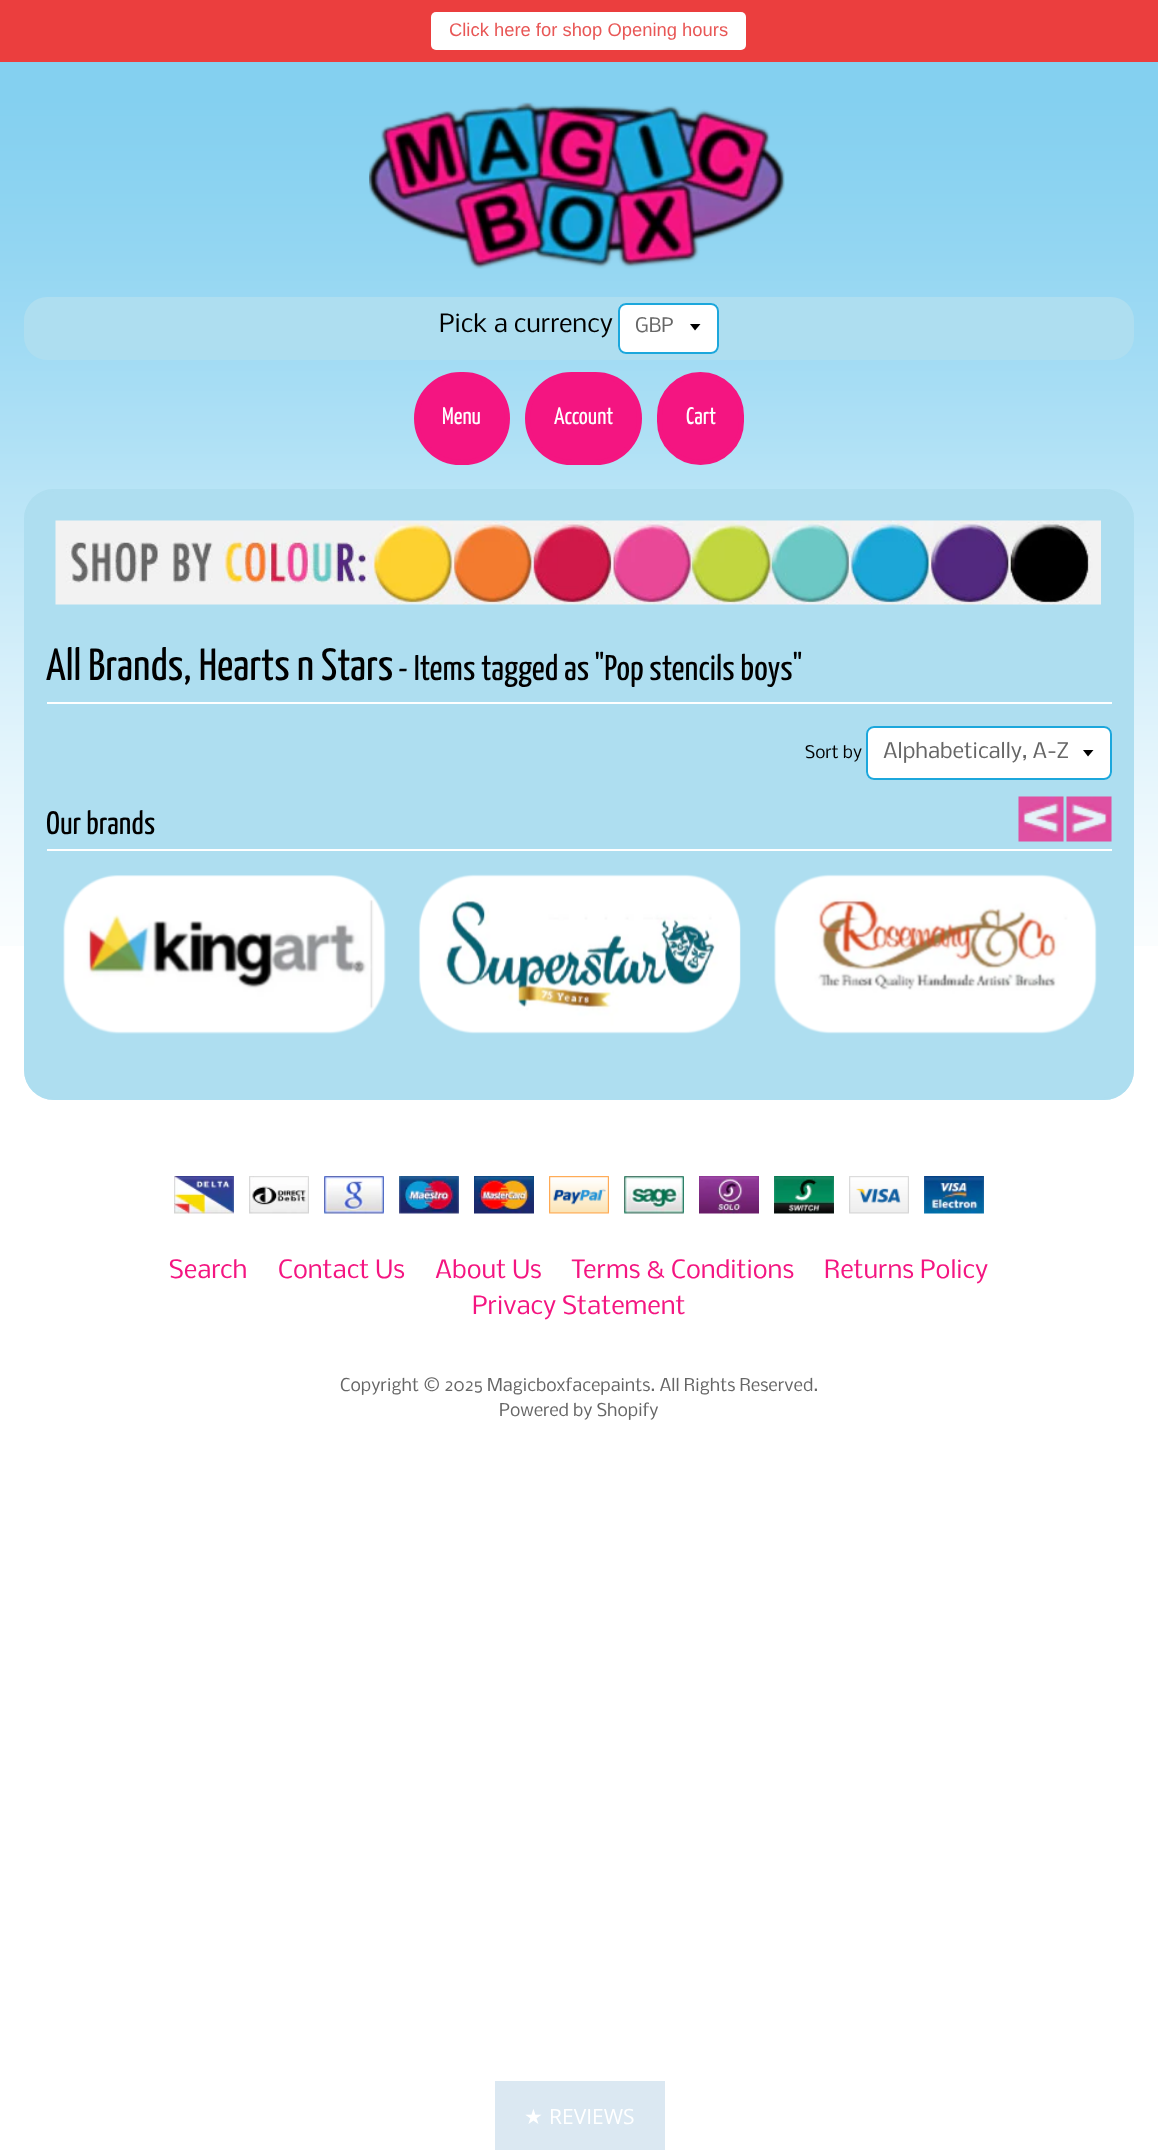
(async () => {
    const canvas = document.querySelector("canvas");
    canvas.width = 1158;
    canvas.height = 2150;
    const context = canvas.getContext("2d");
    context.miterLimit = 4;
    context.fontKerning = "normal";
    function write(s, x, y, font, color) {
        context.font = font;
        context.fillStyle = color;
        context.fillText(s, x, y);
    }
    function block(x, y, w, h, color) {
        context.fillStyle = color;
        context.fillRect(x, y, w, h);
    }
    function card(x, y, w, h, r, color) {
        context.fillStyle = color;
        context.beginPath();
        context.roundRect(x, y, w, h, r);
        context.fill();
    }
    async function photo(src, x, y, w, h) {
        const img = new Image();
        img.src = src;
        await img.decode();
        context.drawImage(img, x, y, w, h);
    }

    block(0, 0, 1158, 2150, "rgb(255, 255, 255)");
    await photo("media/1.png", 0, 62, 1158, 884);
    block(0, 0, 1158, 62, "rgb(235, 62, 62)");
    card(431, 12, 315, 38, 5, "rgb(255, 255, 255)");
    write("Click here for shop Opening hours", 449, 36, "18.4px Liberation Sans", "rgb(232, 87, 86)");
    await photo("media/2.png", 369, 102, 416, 167);
    card(24, 297, 1110, 63, 23, "rgb(174, 222, 240)");
    write("Pick a currency", 439, 332, "24px Nobile", "rgb(0, 0, 0)");
    card(618, 303, 101, 51, 8, "rgb(255, 255, 255)");
    context.fillStyle = "rgb(0, 0, 0)";
    context.beginPath();
    context.moveTo(690, 324);
    context.lineTo(695, 330.5);
    context.lineTo(700.5, 324);
    context.closePath();
    context.fill();
    context.beginPath();
    context.roundRect(619, 304, 99, 49, 7);
    context.strokeStyle = "rgb(28, 167, 220)";
    context.lineWidth = 2;
    context.stroke();
    write("GBP", 635, 332, "19px Nobile", "rgb(102, 102, 102)");
    context.fillStyle = "rgb(244, 21, 129)";
    context.beginPath();
    context.roundRect(416.5, 374.5, 91, 88, 44);
    context.fill();
    context.strokeStyle = "rgb(244, 21, 129)";
    context.lineWidth = 5;
    context.stroke();
    write("Menu", 442, 424, "200 24px Yanone Kaffeesatz", "rgb(255, 255, 255)");
    context.fillStyle = "rgb(244, 21, 129)";
    context.beginPath();
    context.roundRect(527.5, 374.5, 112, 88, 44);
    context.fill();
    context.stroke();
    write("Account", 554, 424, "200 24px Yanone Kaffeesatz", "rgb(255, 255, 255)");
    context.fillStyle = "rgb(244, 21, 129)";
    context.beginPath();
    context.roundRect(659.5, 374.5, 82, 88, 41);
    context.fill();
    context.stroke();
    write("Cart", 686, 424, "200 24px Yanone Kaffeesatz", "rgb(255, 255, 255)");
    card(24, 489, 1110, 611, 30, "rgb(174, 222, 240)");
    context.beginPath();
    context.roundRect(25, 490, 1108, 609, 29);
    context.strokeStyle = "rgba(174, 222, 240, 0.7)";
    context.lineWidth = 2;
    context.stroke();
    await photo("media/3.png", 55, 520, 1046, 85);
    block(47, 702, 1065, 2, "rgb(255, 255, 255)");
    write("All Brands, Hearts n Stars", 46, 680, "200 45px Yanone Kaffeesatz", "rgb(0, 0, 0)");
    write("- Items tagged as \"Pop stencils boys\"", 398, 680, "200 35.9px Yanone Kaffeesatz", "rgb(0, 0, 0)");
    write("Sort by", 805, 758, "16.5px Nobile", "rgb(0, 0, 0)");
    card(866, 726, 246, 54, 8, "rgb(255, 255, 255)");
    context.fillStyle = "rgb(0, 0, 0)";
    context.beginPath();
    context.moveTo(1083, 750);
    context.lineTo(1088, 756.5);
    context.lineTo(1093.5, 750);
    context.closePath();
    context.fill();
    context.beginPath();
    context.roundRect(867, 727, 244, 52, 7);
    context.strokeStyle = "rgb(28, 167, 220)";
    context.stroke();
    write("Alphabetically, A-Z", 883, 758, "20.5px Nobile", "rgb(102, 102, 102)");
    await photo("media/4.png", 1018, 796, 46, 46);
    await photo("media/5.png", 1066, 796, 46, 46);
    await photo("media/6.png", 63, 875, 323, 159);
    await photo("media/7.png", 418, 874, 323, 160);
    await photo("media/8.png", 774, 874, 323, 160);
    block(47, 849, 1065, 2, "rgb(255, 255, 255)");
    write("Our brands", 46, 834, "200 32.5px Yanone Kaffeesatz", "rgb(0, 0, 0)");
    await photo("media/9.png", 174, 1176, 60, 38);
    await photo("media/10.png", 249, 1176, 60, 38);
    await photo("media/11.png", 324, 1176, 60, 38);
    await photo("media/12.png", 399, 1176, 60, 38);
    await photo("media/13.png", 474, 1176, 60, 38);
    await photo("media/14.png", 549, 1176, 60, 38);
    await photo("media/15.png", 624, 1176, 60, 38);
    await photo("media/16.png", 699, 1176, 60, 38);
    await photo("media/17.png", 774, 1176, 60, 38);
    await photo("media/18.png", 849, 1176, 60, 38);
    await photo("media/19.png", 924, 1176, 60, 38);
    write("Search", 169, 1278, "24px Nobile", "rgb(244, 21, 129)");
    write("Contact Us", 278, 1278, "24px Nobile", "rgb(244, 21, 129)");
    write("About Us", 435, 1278, "24px Nobile", "rgb(244, 21, 129)");
    write("Terms & Conditions", 571, 1278, "24px Nobile", "rgb(244, 21, 129)");
    write("Returns Policy", 824, 1278, "24px Nobile", "rgb(244, 21, 129)");
    write("Privacy Statement", 472, 1314, "24px Nobile", "rgb(244, 21, 129)");
    write("Copyright © 2025 Magicboxfacepaints. All Rights Reserved.", 340, 1391, "16.8px Nobile", "rgb(102, 102, 102)");
    write("Powered by Shopify", 499, 1416, "16.8px Nobile", "rgb(102, 102, 102)");
    block(495, 2081, 170, 69, "rgb(219, 232, 242)");
    write("★", 524, 2124, "21px DejaVu Sans", "rgb(255, 255, 255)");
    write("REVIEWS", 549, 2124, "21px Open Sans", "rgb(255, 255, 255)");
})();
